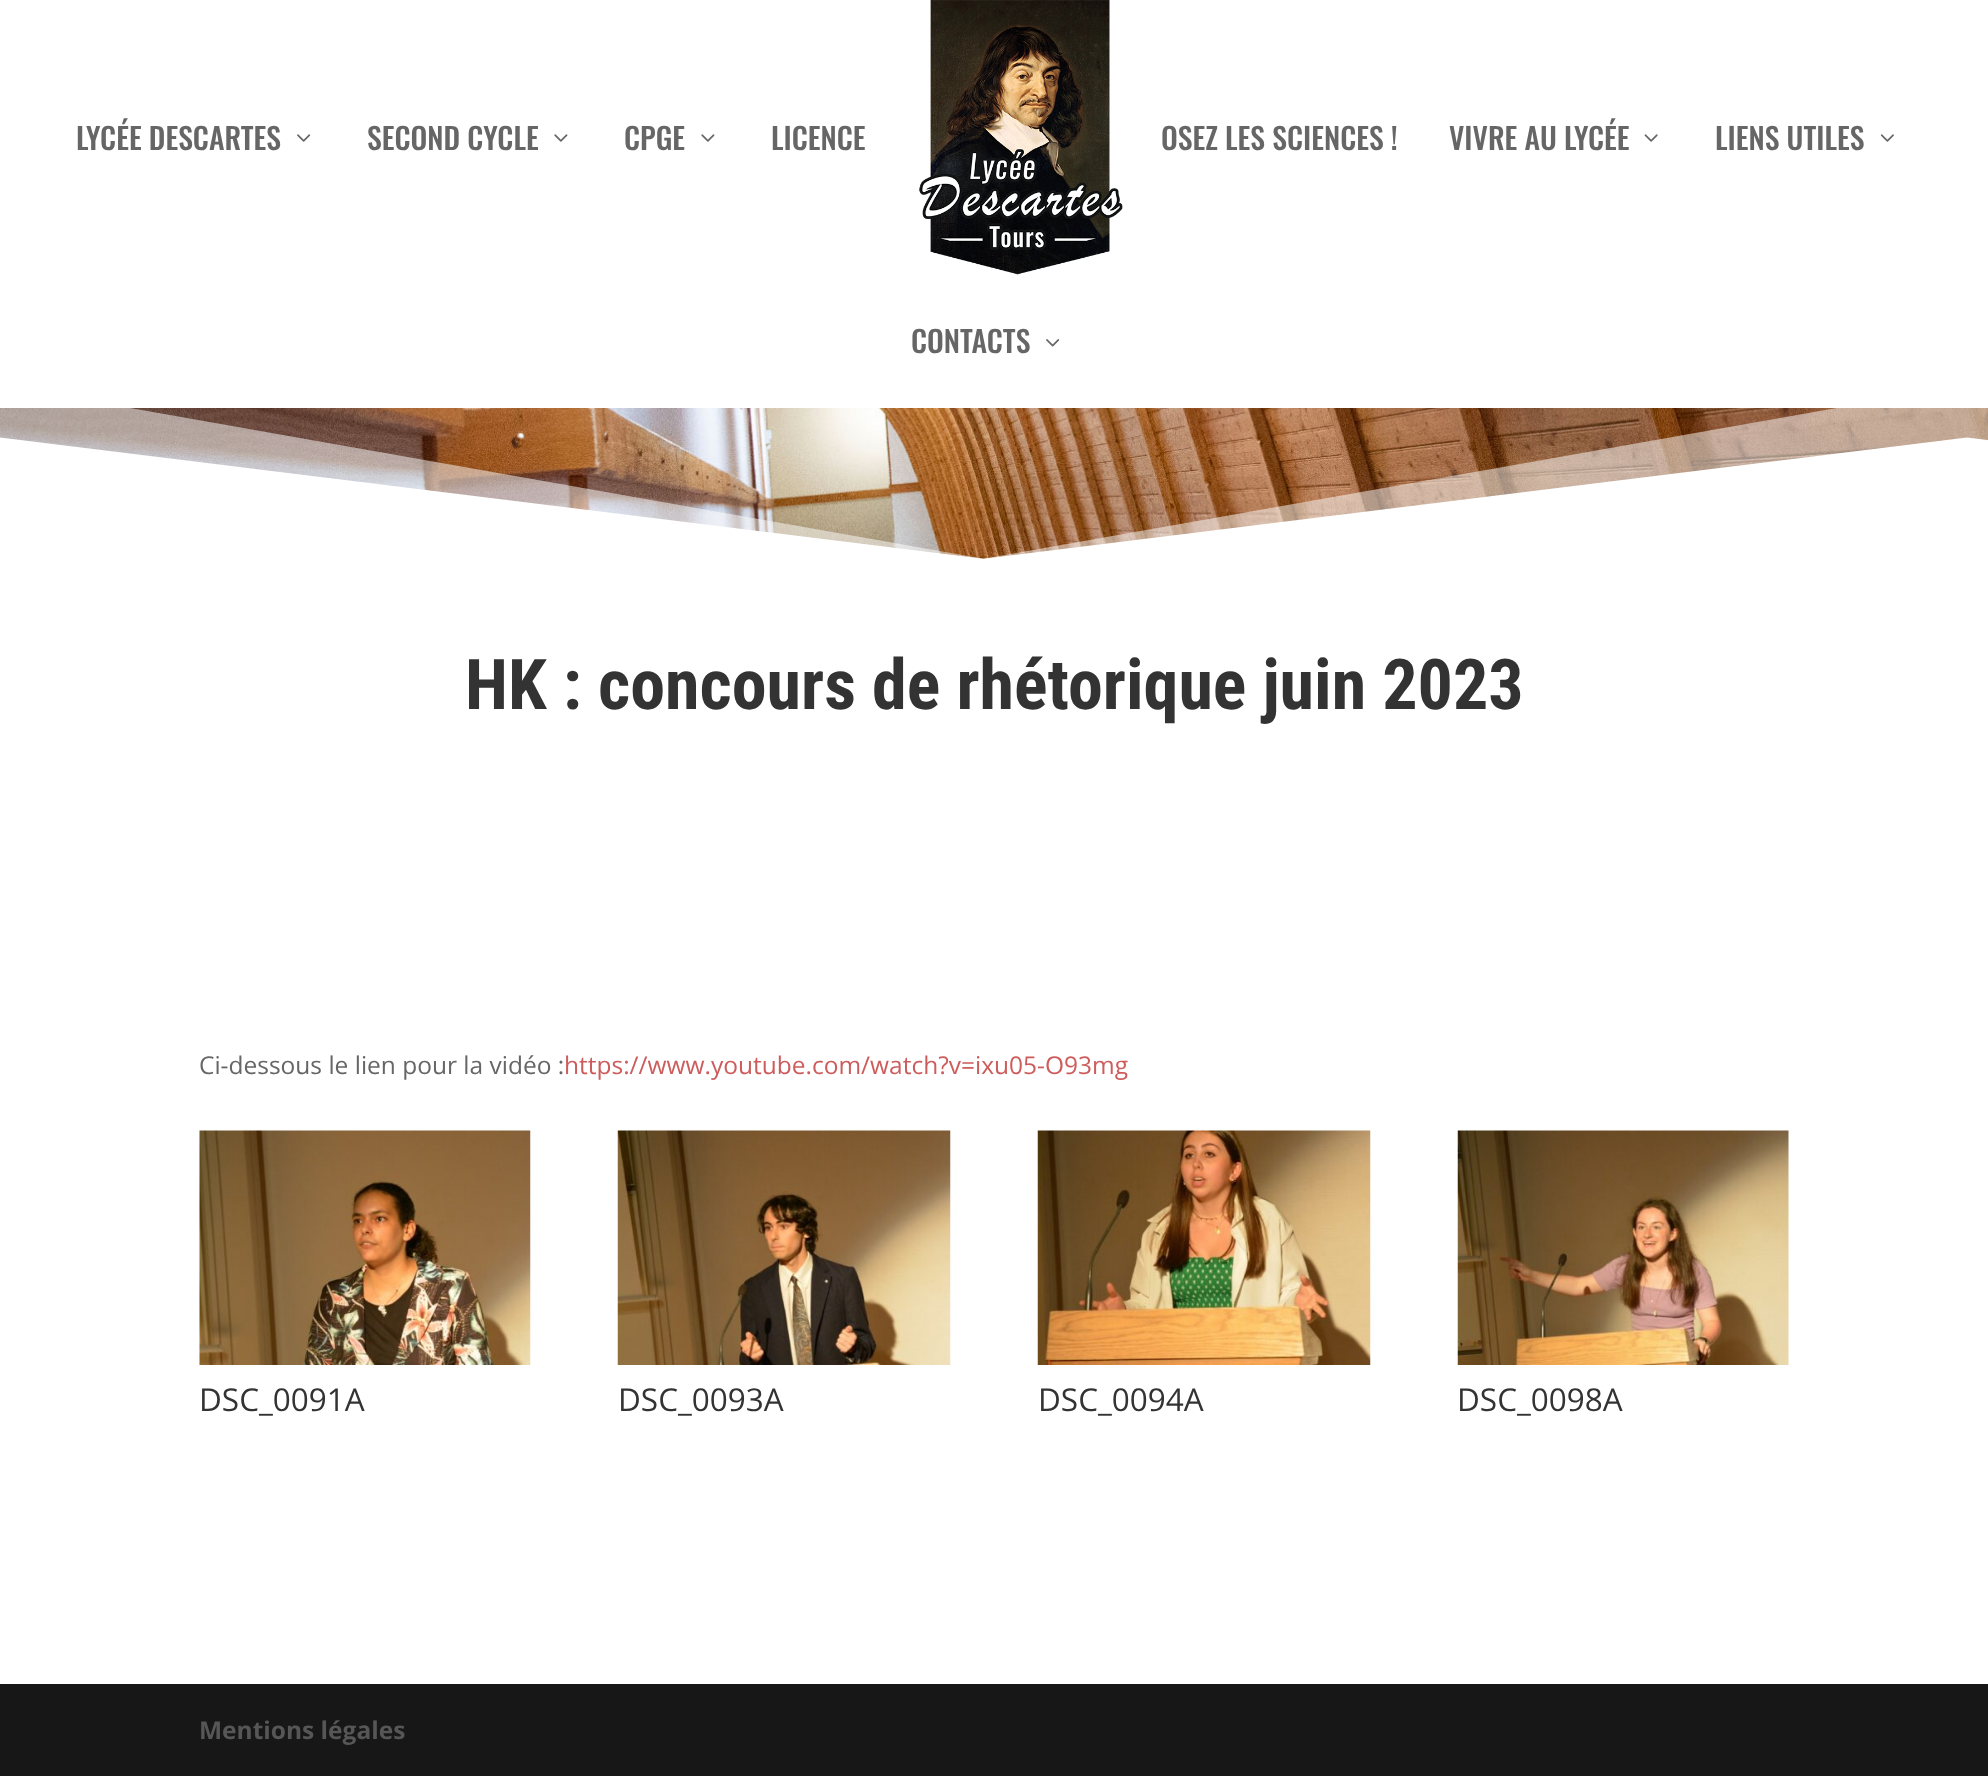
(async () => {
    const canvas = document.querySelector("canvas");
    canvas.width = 1988;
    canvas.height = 1781;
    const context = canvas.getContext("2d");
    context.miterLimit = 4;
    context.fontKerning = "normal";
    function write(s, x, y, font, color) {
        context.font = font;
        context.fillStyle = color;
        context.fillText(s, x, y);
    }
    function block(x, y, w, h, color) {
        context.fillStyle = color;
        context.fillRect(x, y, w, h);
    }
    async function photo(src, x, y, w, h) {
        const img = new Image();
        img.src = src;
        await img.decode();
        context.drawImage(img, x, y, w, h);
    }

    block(0, 0, 1988, 1781, "rgb(255, 255, 255)");
    write("LYCÉE DESCARTES", 76, 150, "500 29.75px Oswald", "rgb(102, 102, 102)");
    await photo("media/1.png", 297, 134, 14, 8);
    write("SECOND CYCLE", 367, 150, "500 29.75px Oswald", "rgb(102, 102, 102)");
    await photo("media/2.png", 554, 134, 14, 8);
    write("CPGE", 624, 150, "500 29.75px Oswald", "rgb(102, 102, 102)");
    await photo("media/2.png", 701, 134, 14, 8);
    write("LICENCE", 771, 150, "500 29.75px Oswald", "rgb(102, 102, 102)");
    await photo("media/3.png", 919, 0, 204, 275);
    write("OSEZ LES SCIENCES !", 1161, 150, "500 29.75px Oswald", "rgb(102, 102, 102)");
    write("VIVRE AU LYCÉE", 1449, 150, "500 29.75px Oswald", "rgb(102, 102, 102)");
    await photo("media/4.png", 1644, 134, 14, 8);
    write("LIENS UTILES", 1715, 150, "500 29.75px Oswald", "rgb(102, 102, 102)");
    await photo("media/5.png", 1880, 134, 14, 8);
    write("CONTACTS", 911, 353, "500 29.75px Oswald", "rgb(102, 102, 102)");
    await photo("media/6.png", 1046, 339, 14, 8);
    await photo("media/7.png", 0, 408, 1988, 151);
    await photo("media/8.png", 0, 408, 1988, 152);
    write("HK : concours de rhétorique juin 2023", 465, 709, "bold 70px Roboto Condensed", "rgb(51, 51, 51)");
    write("Ci-dessous le lien pour la vidéo :", 199, 1074, "24.5px Open Sans", "rgb(102, 102, 102)");
    write("https://www.youtube.com/watch?v=ixu05-O93mg", 564, 1074, "24.5px Open Sans", "rgb(205, 92, 92)");
    await photo("media/9.png", 199, 1130, 332, 235);
    write("DSC_0091A", 199, 1411, "31.5px Open Sans", "rgb(51, 51, 51)");
    await photo("media/10.png", 617, 1130, 334, 235);
    write("DSC_0093A", 618, 1411, "31.5px Open Sans", "rgb(51, 51, 51)");
    await photo("media/11.png", 1037, 1130, 334, 235);
    write("DSC_0094A", 1038, 1411, "31.5px Open Sans", "rgb(51, 51, 51)");
    await photo("media/12.png", 1457, 1130, 332, 235);
    write("DSC_0098A", 1457, 1411, "31.5px Open Sans", "rgb(51, 51, 51)");
    block(0, 1684, 1988, 92, "rgb(23, 23, 23)");
    write("Mentions légales", 199, 1739, "bold 24.5px Open Sans", "rgb(86, 86, 86)");
})();
